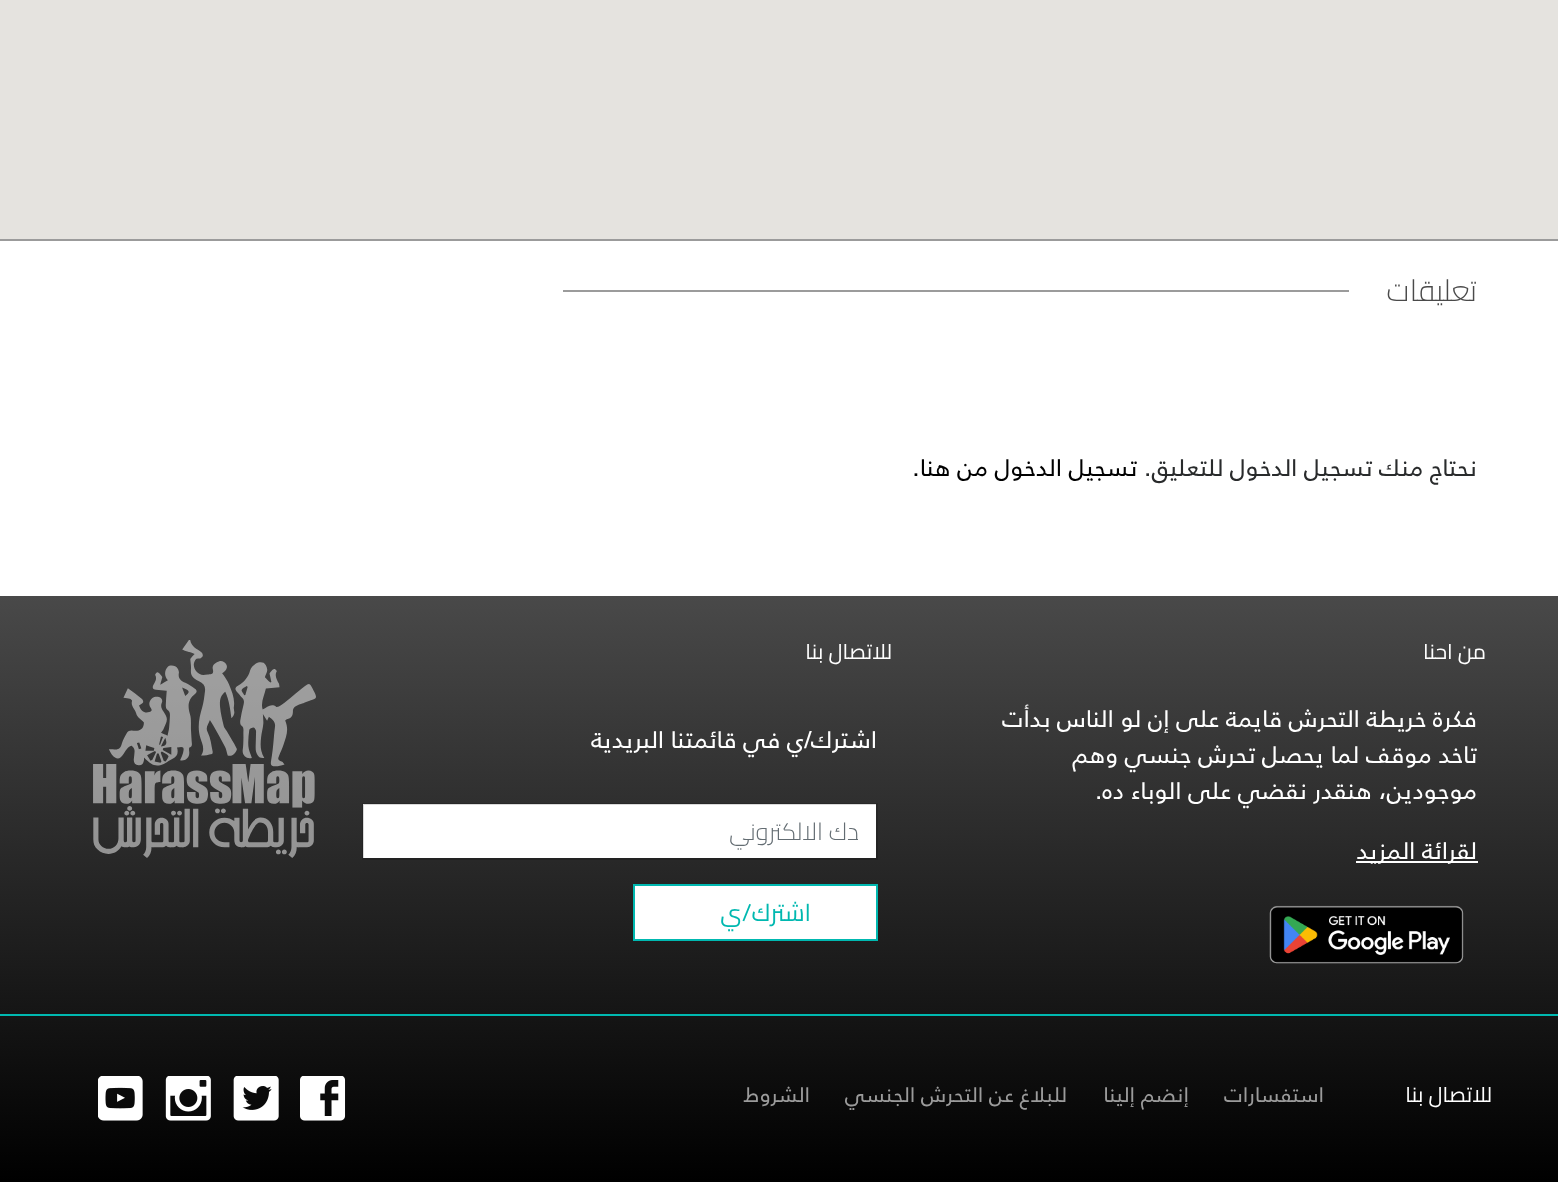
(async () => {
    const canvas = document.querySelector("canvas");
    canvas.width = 1558;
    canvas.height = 1182;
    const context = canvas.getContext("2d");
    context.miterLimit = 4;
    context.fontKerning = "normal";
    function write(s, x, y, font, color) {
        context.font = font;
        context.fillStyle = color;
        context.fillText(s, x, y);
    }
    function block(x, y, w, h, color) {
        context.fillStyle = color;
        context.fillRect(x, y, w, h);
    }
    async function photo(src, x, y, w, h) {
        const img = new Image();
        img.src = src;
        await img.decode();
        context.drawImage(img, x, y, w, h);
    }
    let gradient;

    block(0, 0, 1558, 1182, "rgb(255, 255, 255)");
    block(0, 239, 1558, 2, "rgb(155, 155, 155)");
    block(0, 0, 1558, 239, "rgb(229, 227, 223)");
    context.direction = "rtl";
    write("تعليقات", 1477, 301, "300 30px Cairo", "rgb(74, 74, 74)");
    block(563, 290, 786, 2, "rgb(155, 155, 155)");
    write("نحتاج منك تسجيل الدخول للتعليق.", 1477, 476, "24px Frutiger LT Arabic", "rgb(41, 43, 44)");
    write("تسجيل الدخول من هنا.", 1137, 476, "24px Frutiger LT Arabic", "rgb(0, 0, 0)");
    gradient = context.createLinearGradient(779, 595, 779, 1182);
    gradient.addColorStop(0, "rgb(73, 73, 73)");
    gradient.addColorStop(1, "rgb(0, 0, 0)");
    context.fillStyle = gradient;
    context.fillRect(0, 596, 1558, 586);
    context.letterSpacing = "1.5px";
    context.wordSpacing = "-1px";
    write("من احنا", 1486, 659, "21px Cairo", "rgb(255, 255, 255)");
    context.letterSpacing = "0px";
    context.wordSpacing = "0px";
    write("فكرة خريطة التحرش قايمة على إن لو الناس بدأت", 1477, 727, "24px Frutiger LT Arabic", "rgb(255, 255, 255)");
    write("تاخد موقف لما يحصل تحرش جنسي وهم", 1477, 763, "24px Frutiger LT Arabic", "rgb(255, 255, 255)");
    write("موجودين، هنقدر نقضي على الوباء ده.", 1477, 799, "24px Frutiger LT Arabic", "rgb(255, 255, 255)");
    block(1356, 861, 122, 2, "rgb(255, 255, 255)");
    write("لقرائة المزيد", 1477, 859, "24px Frutiger LT Arabic", "rgb(255, 255, 255)");
    await photo("media/1.png", 1269, 905, 195, 59);
    context.letterSpacing = "1.5px";
    context.wordSpacing = "-1px";
    write("للاتصال بنا", 892, 659, "21px Cairo", "rgb(255, 255, 255)");
    context.letterSpacing = "0px";
    context.wordSpacing = "0px";
    write("اشترك/ي في قائمتنا البريدية", 877, 748, "24px Frutiger LT Arabic", "rgb(255, 255, 255)");
    block(363, 804, 513, 54, "rgb(255, 255, 255)");
    context.strokeStyle = "rgba(0, 0, 0, 0.15)";
    context.lineWidth = 2;
    context.strokeRect(363, 804, 514, 55);
    context.save();
    context.beginPath();
    context.rect(381, 809, 477, 45);
    context.clip();
    context.letterSpacing = "1.5px";
    context.wordSpacing = "-1px";
    write("بريدك الالكتروني", 880, 840, "300 24px Cairo", "rgb(99, 108, 114)");
    context.restore();
    context.beginPath();
    context.rect(634, 885, 243, 55);
    context.fill();
    context.strokeStyle = "rgb(0, 184, 176)";
    context.stroke();
    context.letterSpacing = "1.5px";
    write("اشترك/ي", 811, 921, "24px Cairo", "rgb(0, 184, 176)");
    await photo("media/2.png", 93, 640, 223, 218);
    block(0, 1014, 1558, 2, "rgb(0, 184, 176)");
    context.wordSpacing = "-1px";
    write("للاتصال بنا", 1492, 1102, "21px Cairo", "rgb(255, 255, 255)");
    context.letterSpacing = "0px";
    context.wordSpacing = "0px";
    write("استفسارات", 1324, 1102, "21px Frutiger LT Arabic", "rgb(155, 155, 155)");
    write("إنضم إلينا", 1189, 1102, "21px Frutiger LT Arabic", "rgb(155, 155, 155)");
    write("للبلاغ عن التحرش الجنسي", 1067, 1102, "21px Frutiger LT Arabic", "rgb(155, 155, 155)");
    write("الشروط", 810, 1102, "21px Frutiger LT Arabic", "rgb(155, 155, 155)");
    await photo("media/3.png", 300, 1076, 46, 45);
    await photo("media/4.png", 233, 1076, 46, 45);
    await photo("media/5.png", 165, 1076, 46, 45);
    await photo("media/6.png", 98, 1076, 45, 45);
})();
